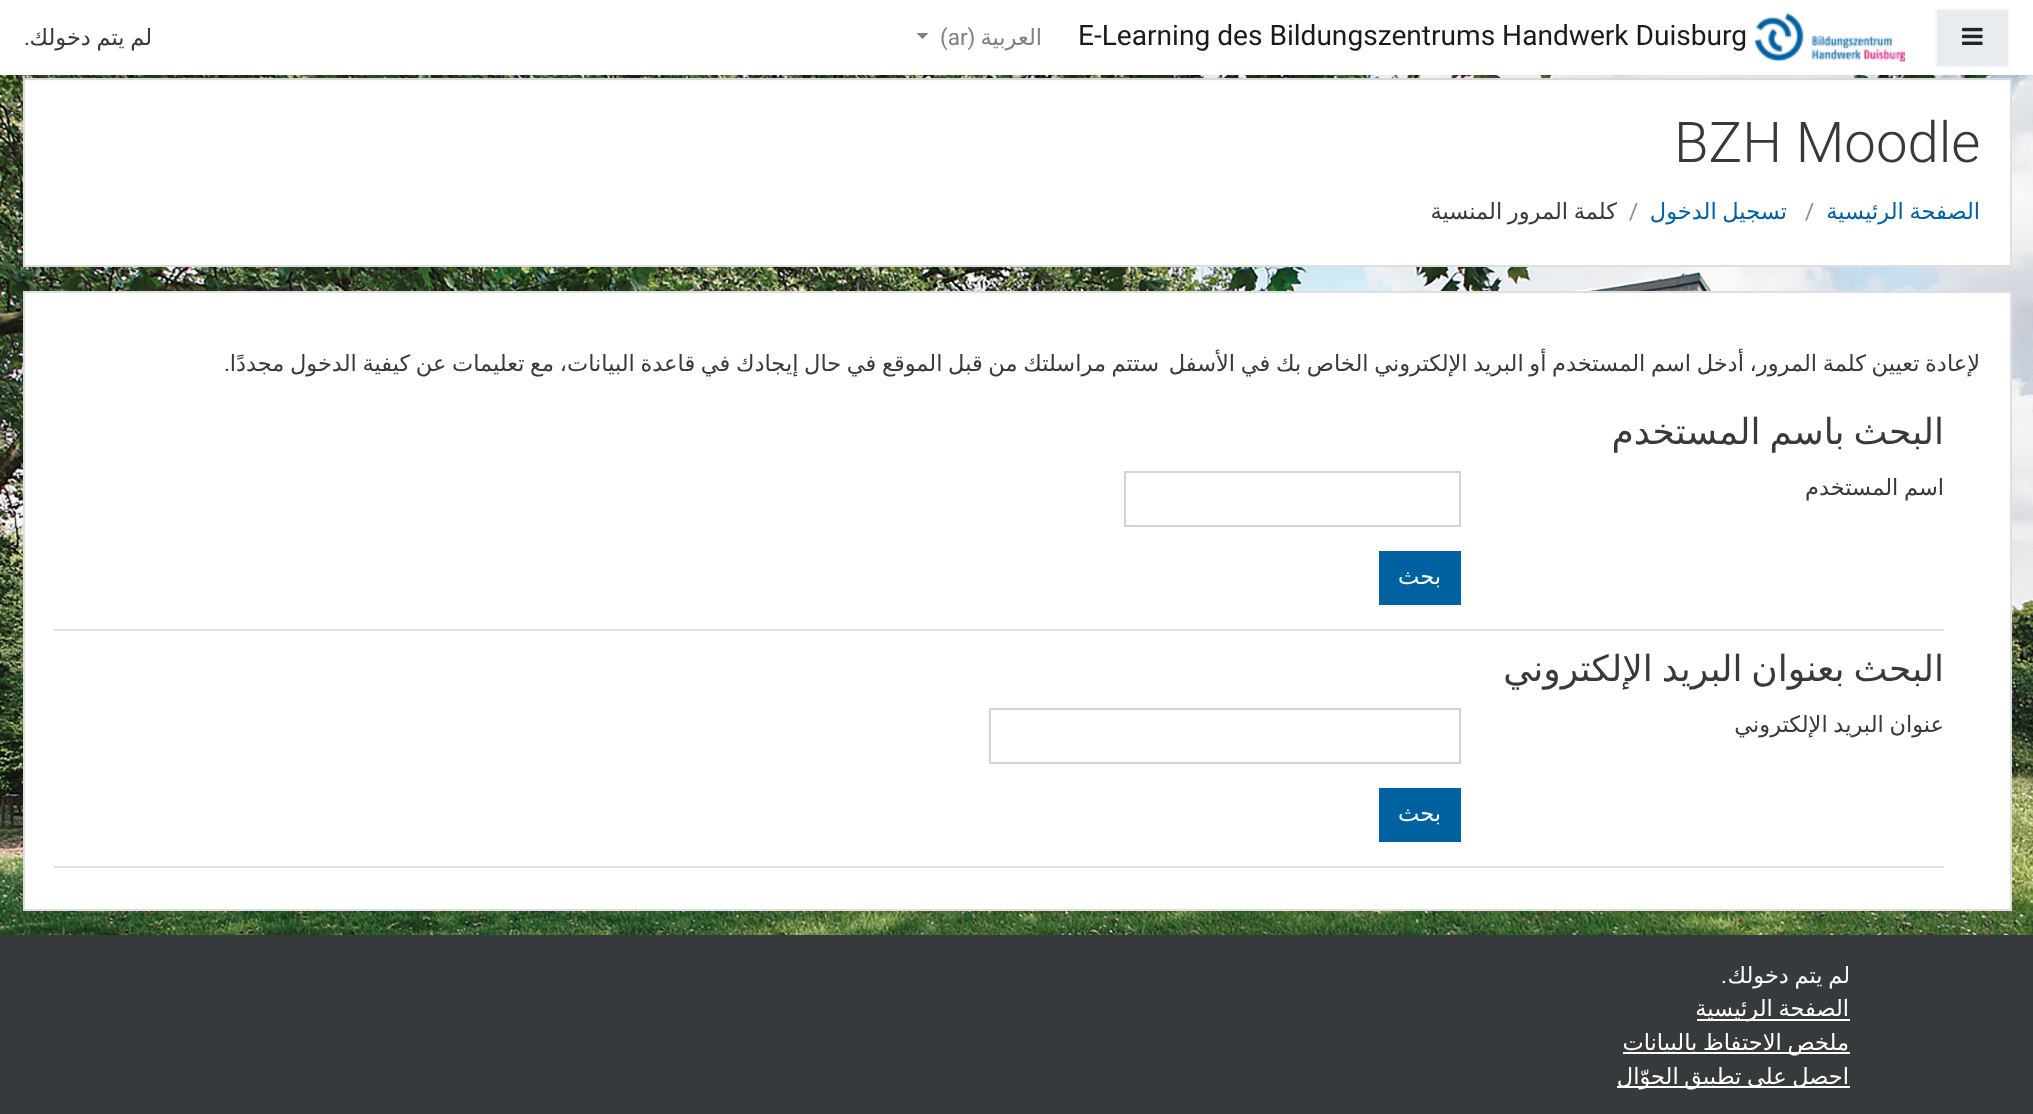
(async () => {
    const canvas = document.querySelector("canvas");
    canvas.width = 2033;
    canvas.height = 1114;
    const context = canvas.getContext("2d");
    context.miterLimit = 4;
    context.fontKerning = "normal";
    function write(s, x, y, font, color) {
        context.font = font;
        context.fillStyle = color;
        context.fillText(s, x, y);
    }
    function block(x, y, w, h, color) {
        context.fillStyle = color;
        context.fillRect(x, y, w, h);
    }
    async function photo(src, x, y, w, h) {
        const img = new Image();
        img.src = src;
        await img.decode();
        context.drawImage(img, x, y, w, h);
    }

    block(0, 0, 2033, 1114, "rgb(255, 255, 255)");
    await photo("media/1.png", 0, 75, 2033, 860);
    context.beginPath();
    context.rect(24, 79, 1987, 187);
    context.fill();
    context.strokeStyle = "rgb(223, 223, 223)";
    context.lineWidth = 2;
    context.stroke();
    context.fillStyle = "rgba(0, 0, 0, 0.08)";
    context.filter = "blur(3px)";
    context.beginPath();
    context.rect(0, 3, 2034, 75);
    context.fill();
    context.filter = "none";
    block(0, 0, 2033, 75, "rgb(255, 255, 255)");
    context.fillStyle = "rgb(233, 236, 239)";
    context.beginPath();
    context.rect(1936, 9, 73, 58);
    context.fill();
    context.strokeStyle = "rgb(248, 249, 250)";
    context.stroke();
    await photo("media/2.png", 1962, 27, 21, 18);
    await photo("media/3.png", 1755, 13, 150, 49);
    write("E-Learning des Bildungszentrums Handwerk Duisburg", 1078, 45, "28.1px Roboto", "rgb(26, 26, 26)");
    context.direction = "rtl";
    write("العربية", 1042, 45, "22.5px DejaVu Sans", "rgb(128, 128, 128)");
    context.direction = "ltr";
    write("(ar)", 940, 45, "22.5px Roboto", "rgb(128, 128, 128)");
    context.beginPath();
    context.moveTo(916.5, 33);
    context.lineTo(928.5, 33);
    context.lineTo(922.5, 39);
    context.closePath();
    context.fill();
    context.wordSpacing = "-1.5px";
    context.direction = "rtl";
    write("لم يتم دخولك", 152, 45, "22.5px DejaVu Sans", "rgb(55, 58, 60)");
    context.wordSpacing = "0px";
    write(".", 30, 45, "22.5px Roboto", "rgb(55, 58, 60)");
    context.direction = "ltr";
    write("BZH Moodle", 1674, 162, "300 56.25px Roboto", "rgb(55, 58, 60)");
    context.wordSpacing = "-1.5px";
    context.direction = "rtl";
    write("الصفحة الرئيسية", 1980, 219, "22.5px DejaVu Sans", "rgb(0, 97, 161)");
    context.wordSpacing = "0px";
    context.direction = "ltr";
    write("/", 1805, 219, "22.5px Roboto", "rgb(134, 142, 150)");
    context.wordSpacing = "-1.5px";
    context.direction = "rtl";
    write("تسجيل الدخول", 1787, 219, "22.5px DejaVu Sans", "rgb(0, 97, 161)");
    context.wordSpacing = "0px";
    context.direction = "ltr";
    write("/", 1629, 219, "22.5px Roboto", "rgb(134, 142, 150)");
    context.wordSpacing = "-1.5px";
    context.direction = "rtl";
    write("كلمة المرور المنسية", 1617, 219, "22.5px DejaVu Sans", "rgb(55, 58, 60)");
    context.fillStyle = "rgb(255, 255, 255)";
    context.beginPath();
    context.rect(24, 292, 1987, 618);
    context.fill();
    context.strokeStyle = "rgb(223, 223, 223)";
    context.stroke();
    write("لإعادة تعيين كلمة المرور، أدخل اسم المستخدم أو البريد الإلكتروني الخاص بك في الأسفل", 1980, 371, "22.5px DejaVu Sans", "rgb(55, 58, 60)");
    write("ستتم مراسلتك من قبل الموقع في حال إيجادك في قاعدة البيانات، مع تعليمات عن كيفية الدخول مجددًا", 1159, 371, "22.5px DejaVu Sans", "rgb(55, 58, 60)");
    context.wordSpacing = "0px";
    write(".", 230, 371, "22.5px Roboto", "rgb(55, 58, 60)");
    block(54, 629, 1890, 2, "rgb(222, 226, 230)");
    context.wordSpacing = "-2.5px";
    write("البحث باسم المستخدم", 1944, 444, "36px DejaVu Sans", "rgb(55, 58, 60)");
    context.wordSpacing = "-1.5px";
    write("اسم المستخدم", 1944, 495, "22.5px DejaVu Sans", "rgb(55, 58, 60)");
    context.strokeStyle = "rgb(206, 212, 218)";
    context.strokeRect(1125, 472, 335, 54);
    block(1379, 551, 82, 54, "rgb(0, 97, 161)");
    context.wordSpacing = "0px";
    write("بحث", 1441, 584, "22.5px DejaVu Sans", "rgb(255, 255, 255)");
    block(54, 866, 1890, 2, "rgb(222, 226, 230)");
    context.wordSpacing = "-2.5px";
    write("البحث بعنوان البريد الإلكتروني", 1944, 681, "36px DejaVu Sans", "rgb(55, 58, 60)");
    context.wordSpacing = "-1.5px";
    write("عنوان البريد الإلكتروني", 1944, 732, "22.5px DejaVu Sans", "rgb(55, 58, 60)");
    context.strokeRect(990, 709, 470, 54);
    block(1379, 788, 82, 54, "rgb(0, 97, 161)");
    context.wordSpacing = "0px";
    write("بحث", 1441, 821, "22.5px DejaVu Sans", "rgb(255, 255, 255)");
    block(0, 935, 2033, 179, "rgb(55, 58, 60)");
    context.wordSpacing = "-1.5px";
    write("لم يتم دخولك", 1850, 983, "22.5px DejaVu Sans", "rgb(248, 249, 250)");
    context.wordSpacing = "0px";
    write(".", 1727, 983, "22.5px Roboto", "rgb(248, 249, 250)");
    block(1697, 1019, 153, 2, "rgb(255, 255, 255)");
    context.wordSpacing = "-1.5px";
    write("الصفحة الرئيسية", 1849, 1016, "22.5px DejaVu Sans", "rgb(255, 255, 255)");
    block(1623, 1052, 227, 2, "rgb(255, 255, 255)");
    write("ملخص الاحتفاظ بالبيانات", 1849, 1050, "22.5px DejaVu Sans", "rgb(255, 255, 255)");
    block(1617, 1086, 233, 2, "rgb(255, 255, 255)");
    write("احصل على تطبيق الجوّال", 1849, 1084, "22.5px DejaVu Sans", "rgb(255, 255, 255)");
})();
